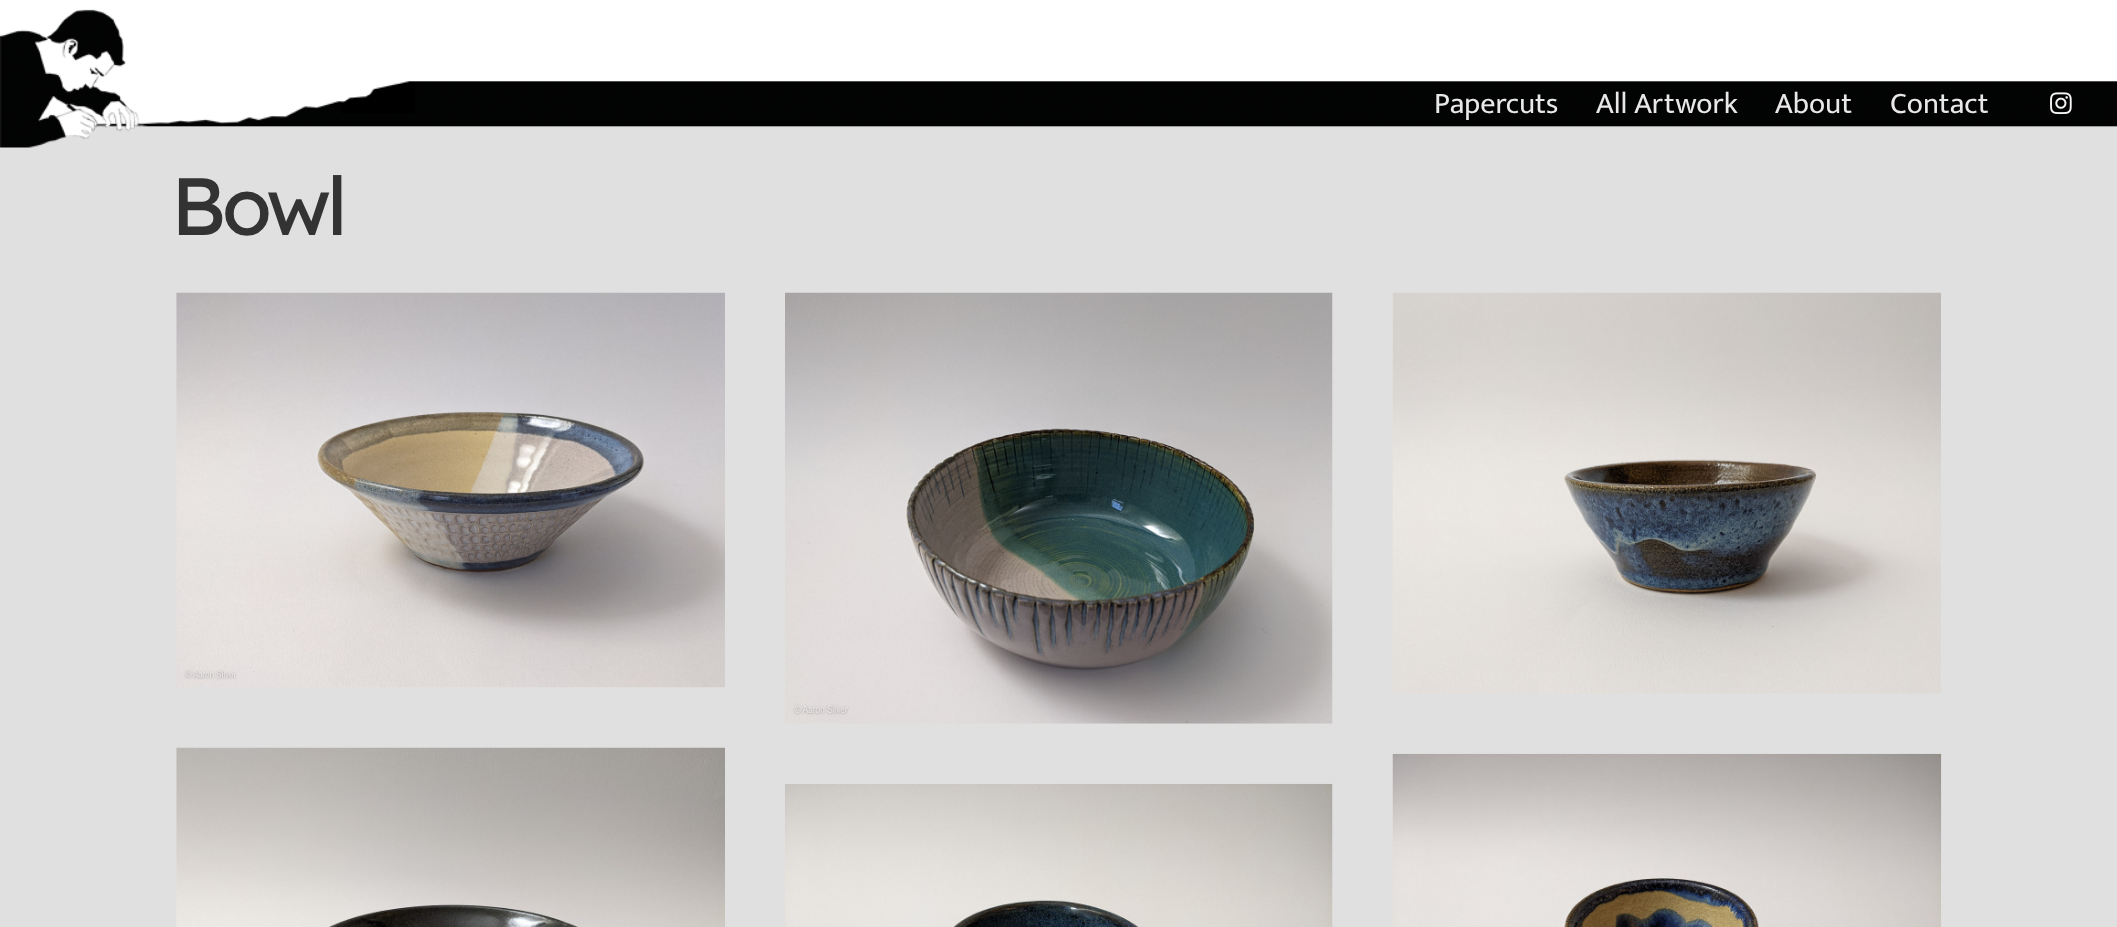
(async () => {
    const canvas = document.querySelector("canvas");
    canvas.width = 2117;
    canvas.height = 927;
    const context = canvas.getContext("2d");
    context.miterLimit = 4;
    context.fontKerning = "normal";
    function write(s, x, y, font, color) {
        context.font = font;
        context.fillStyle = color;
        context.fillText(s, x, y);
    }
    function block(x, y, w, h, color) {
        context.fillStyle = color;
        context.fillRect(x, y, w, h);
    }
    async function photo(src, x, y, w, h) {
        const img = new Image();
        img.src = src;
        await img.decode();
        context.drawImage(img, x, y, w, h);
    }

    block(0, 0, 2117, 927, "rgb(224, 224, 224)");
    await photo("media/1.png", 0, 0, 2117, 148);
    write("Papercuts", 1434, 113, "30px Mukta", "rgb(232, 232, 232)");
    write("All Artwork", 1596, 113, "30px Mukta", "rgb(232, 232, 232)");
    write("About", 1775, 113, "30px Mukta", "rgb(232, 232, 232)");
    write("Contact", 1890, 113, "30px Mukta", "rgb(232, 232, 232)");
    await photo("media/2.png", 2050, 92, 22, 23);
    context.letterSpacing = "-4px";
    write("Bowl", 171, 235, "81px Lexend Deca", "rgb(51, 51, 51)");
    await photo("media/3.png", 176, 292, 549, 396);
    await photo("media/4.png", 785, 292, 548, 432);
    await photo("media/5.png", 1392, 292, 549, 402);
    await photo("media/6.png", 176, 747, 549, 180);
    await photo("media/7.png", 785, 783, 548, 144);
    await photo("media/8.png", 1392, 753, 550, 174);
})();
